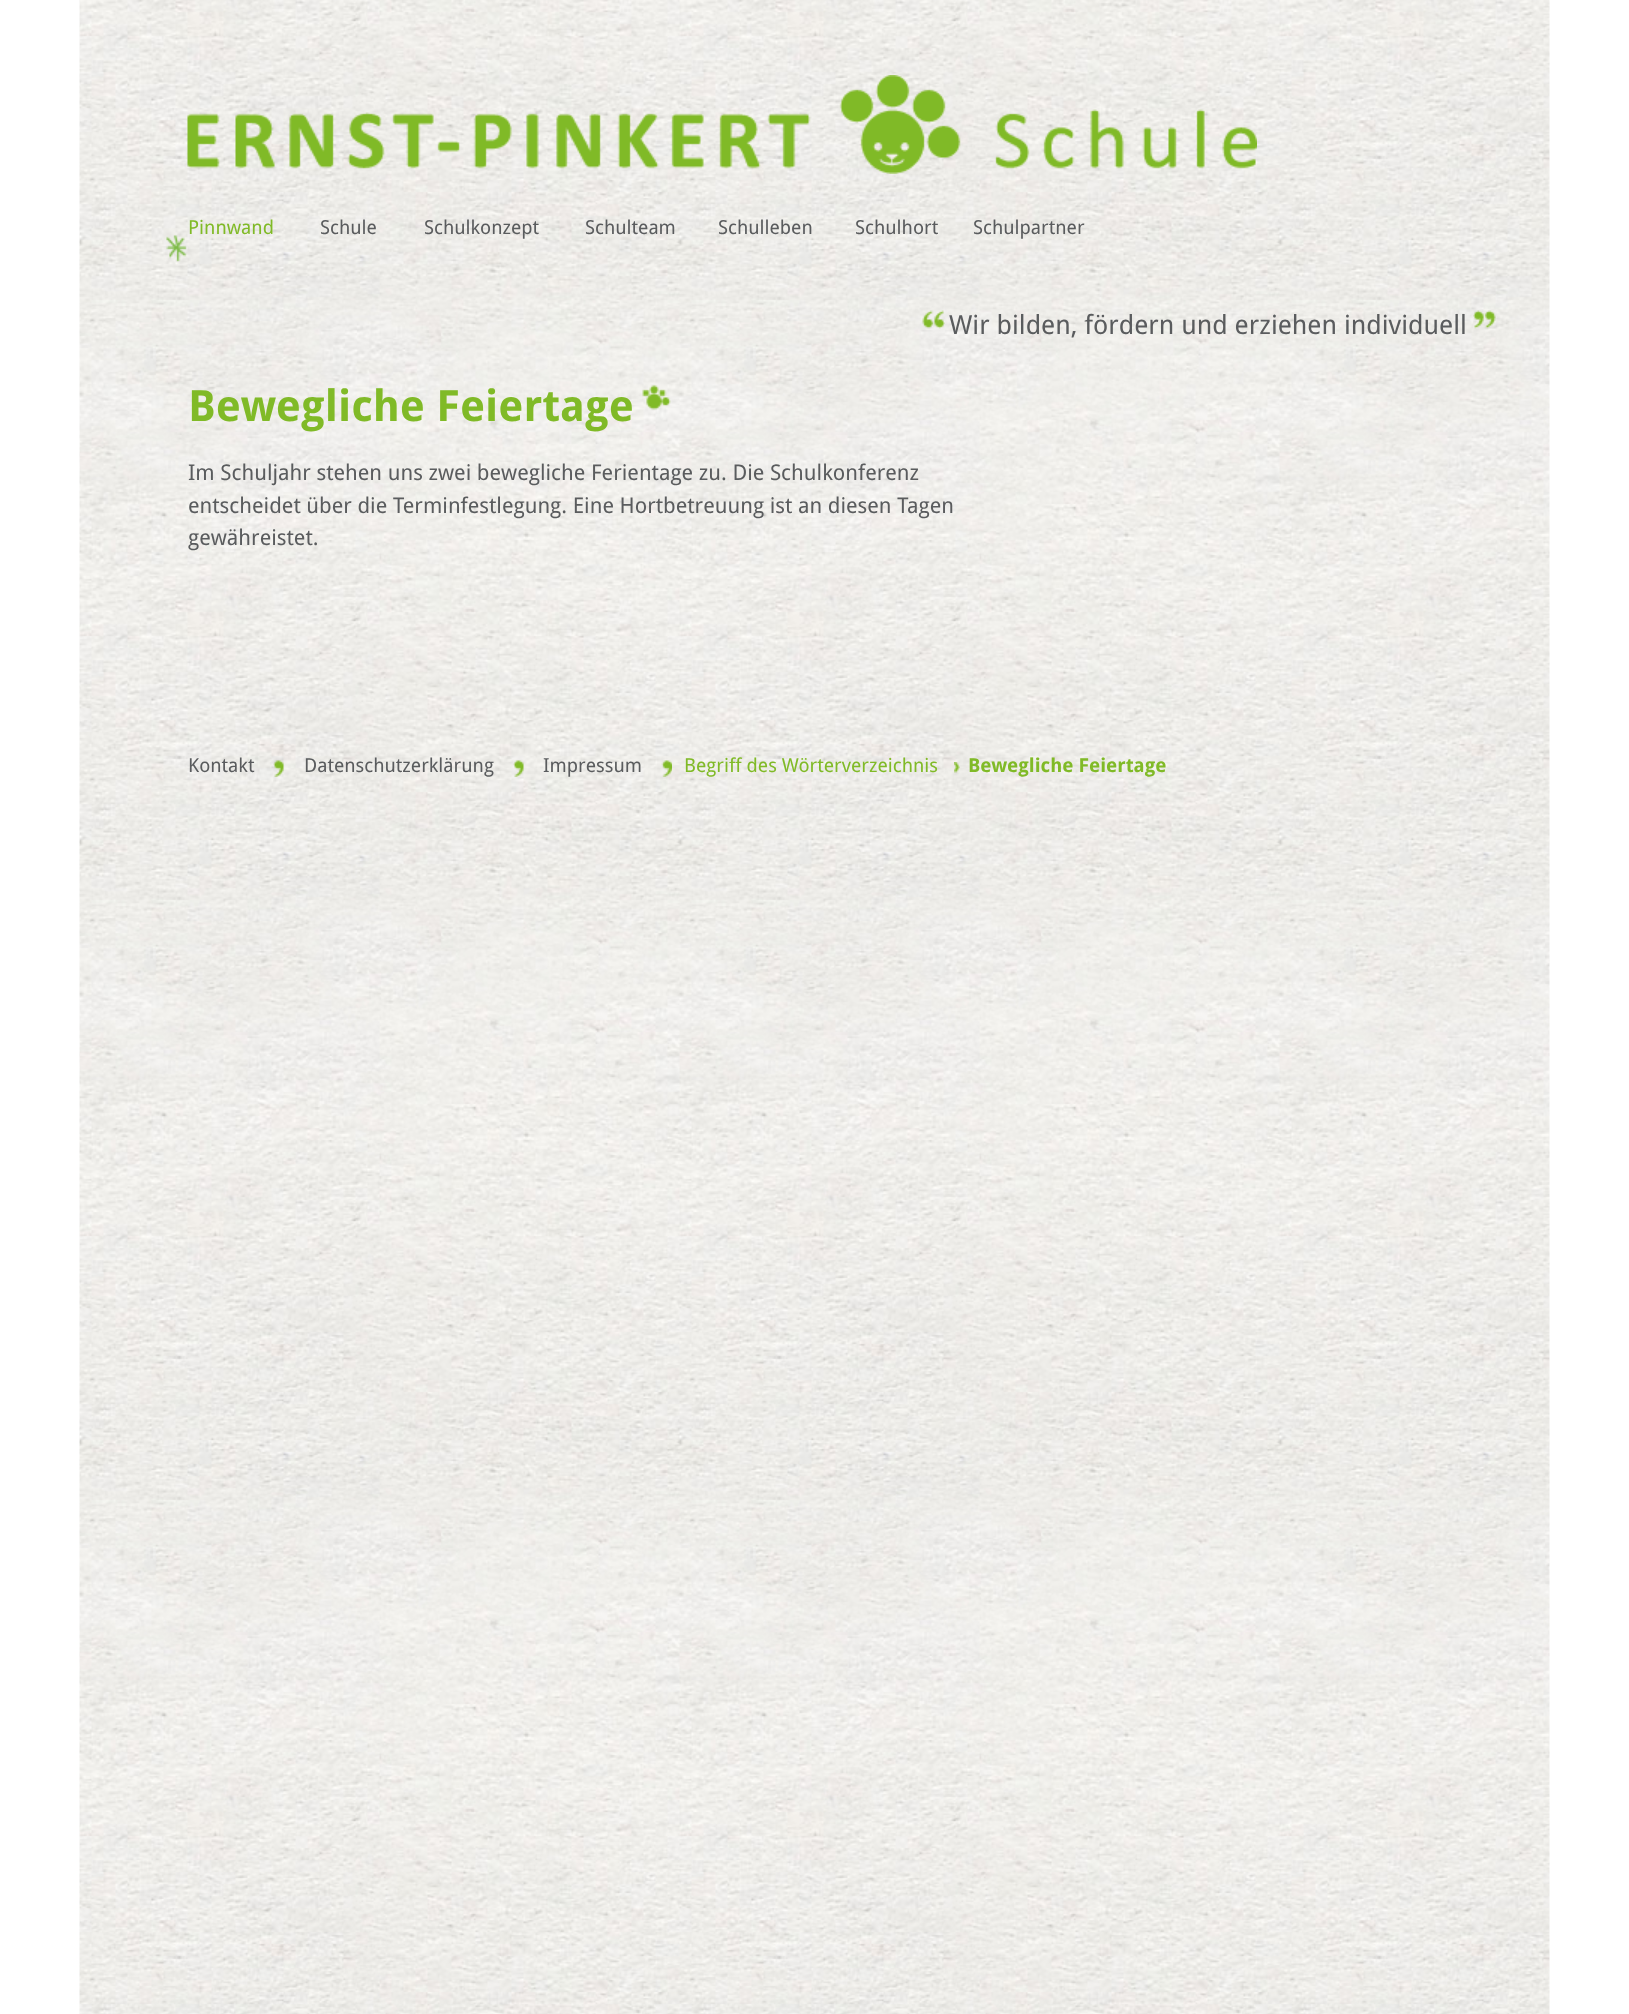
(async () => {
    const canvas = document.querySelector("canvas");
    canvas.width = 1629;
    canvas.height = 2014;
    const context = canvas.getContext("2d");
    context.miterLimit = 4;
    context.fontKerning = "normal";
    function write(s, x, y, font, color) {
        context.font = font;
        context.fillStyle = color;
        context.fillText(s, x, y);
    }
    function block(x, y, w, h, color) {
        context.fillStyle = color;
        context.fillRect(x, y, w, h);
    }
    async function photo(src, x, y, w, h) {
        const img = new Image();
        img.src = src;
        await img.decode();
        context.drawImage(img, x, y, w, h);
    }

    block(0, 0, 1629, 2014, "rgb(255, 255, 255)");
    await photo("media/1.png", 79, 0, 1471, 2014);
    await photo("media/2.png", 187, 75, 1070, 99);
    await photo("media/3.png", 166, 235, 21, 27);
    write("Pinnwand", 188, 234, "19.25px Droid Sans", "rgb(128, 186, 39)");
    write("Schule", 320, 234, "19.25px Droid Sans", "rgb(90, 92, 94)");
    write("Schulkonzept", 424, 234, "19.25px Droid Sans", "rgb(90, 92, 94)");
    write("Schulteam", 585, 234, "19.25px Droid Sans", "rgb(90, 92, 94)");
    write("Schulleben", 718, 234, "19.25px Droid Sans", "rgb(90, 92, 94)");
    write("Schulhort", 855, 234, "19.25px Droid Sans", "rgb(90, 92, 94)");
    write("Schulpartner", 973, 234, "19.25px Droid Sans", "rgb(90, 92, 94)");
    await photo("media/4.png", 922, 310, 23, 19);
    write("Wir bilden, fördern und erziehen individuell", 949, 334, "26.4px Droid Sans", "rgb(90, 92, 94)");
    await photo("media/5.png", 1473, 310, 23, 19);
    write("Bewegliche Feiertage", 188, 421, "bold 43.25px Droid Sans", "rgb(128, 186, 39)");
    await photo("media/6.png", 642, 385, 29, 25);
    write("Im Schuljahr stehen uns zwei bewegliche Ferientage zu. Die Schulkonferenz", 188, 480, "21.6px Droid Sans", "rgb(90, 92, 94)");
    write("entscheidet über die Terminfestlegung. Eine Hortbetreuung ist an diesen Tagen", 188, 513, "21.6px Droid Sans", "rgb(90, 92, 94)");
    write("gewähreistet.", 188, 545, "21.6px Droid Sans", "rgb(90, 92, 94)");
    await photo("media/7.png", 273, 760, 11, 17);
    write("Kontakt", 188, 772, "19.25px Droid Sans", "rgb(90, 92, 94)");
    await photo("media/8.png", 513, 760, 11, 17);
    write("Datenschutzerklärung", 304, 772, "19.25px Droid Sans", "rgb(90, 92, 94)");
    await photo("media/9.png", 661, 760, 11, 17);
    write("Impressum", 543, 772, "19.25px Droid Sans", "rgb(90, 92, 94)");
    await photo("media/10.png", 954, 762, 6, 11);
    write("Begriff des Wörterverzeichnis", 684, 772, "19.25px Droid Sans", "rgb(128, 186, 39)");
    write("Bewegliche Feiertage", 968, 772, "bold 19.25px Droid Sans", "rgb(128, 186, 39)");
})();
